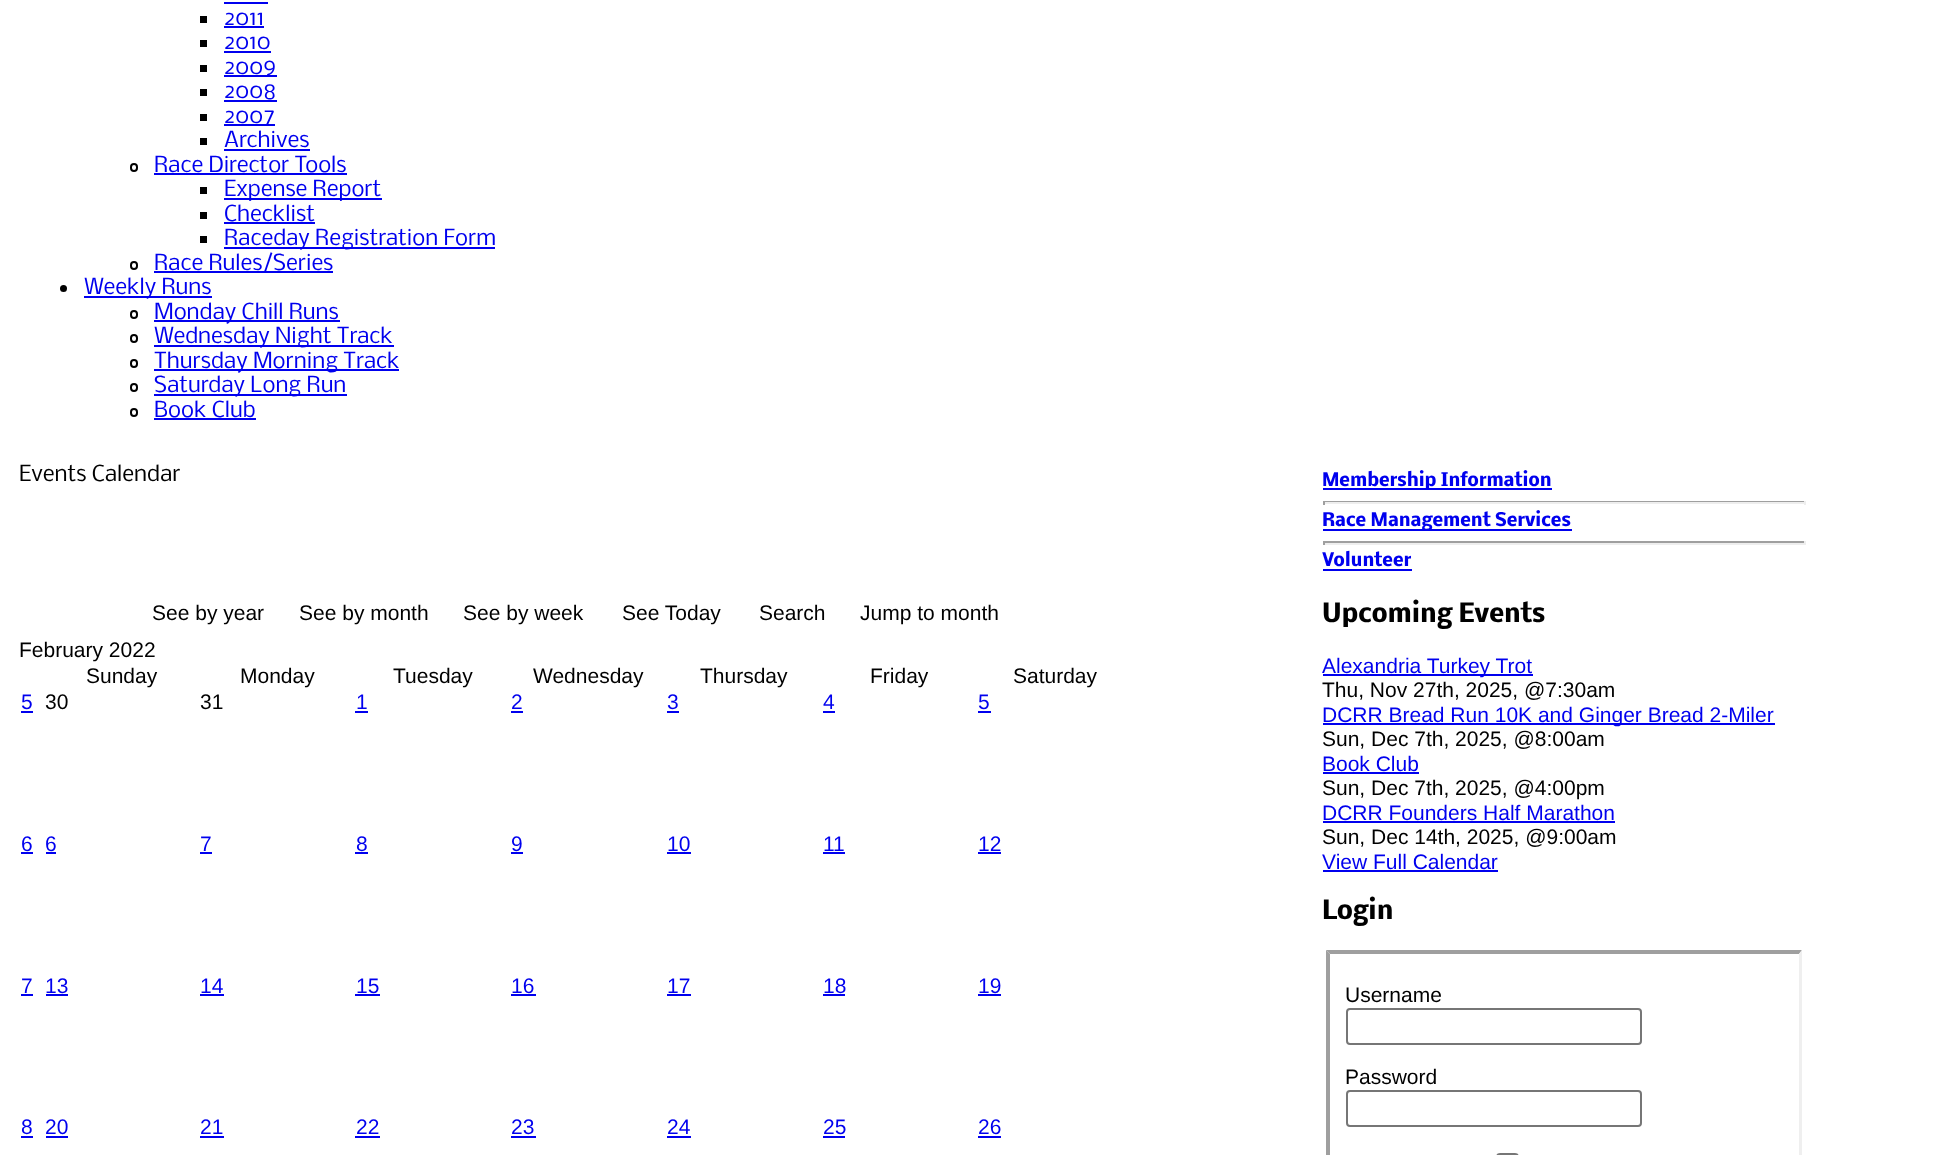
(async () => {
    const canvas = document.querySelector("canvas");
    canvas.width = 1942;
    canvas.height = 1155;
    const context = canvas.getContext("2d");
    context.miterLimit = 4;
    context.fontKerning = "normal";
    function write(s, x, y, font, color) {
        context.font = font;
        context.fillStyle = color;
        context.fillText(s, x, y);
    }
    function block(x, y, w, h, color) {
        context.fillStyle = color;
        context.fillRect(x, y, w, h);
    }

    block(0, 0, 1942, 1155, "rgb(255, 255, 255)");
    block(224, 2, 44, 2, "rgb(0, 0, 238)");
    block(200, 16, 7, 7, "rgb(0, 0, 0)");
    write("2011", 224, 25, "21px Nobile", "rgb(0, 0, 238)");
    block(224, 26, 40, 2, "rgb(0, 0, 238)");
    block(200, 40, 7, 7, "rgb(0, 0, 0)");
    write("2010", 224, 49, "21px Nobile", "rgb(0, 0, 238)");
    block(224, 51, 47, 2, "rgb(0, 0, 238)");
    block(200, 65, 7, 7, "rgb(0, 0, 0)");
    block(224, 75, 53, 2, "rgb(0, 0, 238)");
    write("2009", 224, 74, "21px Nobile", "rgb(0, 0, 238)");
    block(200, 89, 7, 7, "rgb(0, 0, 0)");
    write("2008", 224, 98, "21px Nobile", "rgb(0, 0, 238)");
    block(224, 100, 53, 2, "rgb(0, 0, 238)");
    block(200, 114, 7, 7, "rgb(0, 0, 0)");
    block(224, 124, 51, 2, "rgb(0, 0, 238)");
    write("2007", 224, 123, "21px Nobile", "rgb(0, 0, 238)");
    block(200, 138, 7, 7, "rgb(0, 0, 0)");
    write("Archives", 224, 147, "21px Nobile", "rgb(0, 0, 238)");
    block(224, 149, 86, 2, "rgb(0, 0, 238)");
    context.beginPath();
    context.roundRect(131, 164, 6, 7, 3);
    context.strokeStyle = "rgb(0, 0, 0)";
    context.lineWidth = 2;
    context.stroke();
    write("Race Director Tools", 154, 172, "21px Nobile", "rgb(0, 0, 238)");
    block(154, 173, 193, 2, "rgb(0, 0, 238)");
    block(200, 187, 7, 7, "rgb(0, 0, 0)");
    block(224, 198, 158, 2, "rgb(0, 0, 238)");
    write("Expense Report", 224, 196, "21px Nobile", "rgb(0, 0, 238)");
    block(200, 212, 7, 7, "rgb(0, 0, 0)");
    write("Checklist", 224, 221, "21px Nobile", "rgb(0, 0, 238)");
    block(224, 222, 91, 2, "rgb(0, 0, 238)");
    block(200, 236, 7, 7, "rgb(0, 0, 0)");
    block(224, 247, 271, 2, "rgb(0, 0, 238)");
    write("Raceday Registration Form", 224, 245, "21px Nobile", "rgb(0, 0, 238)");
    context.beginPath();
    context.roundRect(131, 262, 6, 7, 3);
    context.stroke();
    block(154, 271, 179, 2, "rgb(0, 0, 238)");
    write("Race Rules/Series", 154, 270, "21px Nobile", "rgb(0, 0, 238)");
    context.fillStyle = "rgb(0, 0, 0)";
    context.beginPath();
    context.arc(63.5, 288.5, 3.5, 0, Math.PI * 2);
    context.fill();
    block(84, 296, 128, 2, "rgb(0, 0, 238)");
    write("Weekly Runs", 84, 294, "21px Nobile", "rgb(0, 0, 238)");
    context.beginPath();
    context.roundRect(131, 311, 6, 7, 3);
    context.stroke();
    block(154, 320, 186, 2, "rgb(0, 0, 238)");
    write("Monday Chill Runs", 154, 319, "21px Nobile", "rgb(0, 0, 238)");
    context.beginPath();
    context.roundRect(131, 335, 6, 7, 3);
    context.stroke();
    block(154, 345, 240, 2, "rgb(0, 0, 238)");
    write("Wednesday Night Track", 154, 343, "21px Nobile", "rgb(0, 0, 238)");
    context.beginPath();
    context.roundRect(131, 360, 6, 7, 3);
    context.stroke();
    block(154, 369, 245, 2, "rgb(0, 0, 238)");
    write("Thursday Morning Track", 154, 368, "21px Nobile", "rgb(0, 0, 238)");
    context.beginPath();
    context.roundRect(131, 384, 6, 7, 3);
    context.stroke();
    block(154, 394, 193, 2, "rgb(0, 0, 238)");
    write("Saturday Long Run", 154, 392, "21px Nobile", "rgb(0, 0, 238)");
    context.beginPath();
    context.roundRect(131, 409, 6, 7, 3);
    context.stroke();
    write("Book Club", 154, 417, "21px Nobile", "rgb(0, 0, 238)");
    block(154, 418, 102, 2, "rgb(0, 0, 238)");
    write("Events Calendar", 19, 481, "21px Nobile", "rgb(0, 0, 0)");
    write("See by year", 152, 620, "21px Liberation Sans", "rgb(0, 0, 0)");
    write("See by month", 299, 620, "21px Liberation Sans", "rgb(0, 0, 0)");
    write("See by week", 463, 620, "21px Liberation Sans", "rgb(0, 0, 0)");
    write("See Today", 622, 620, "21px Liberation Sans", "rgb(0, 0, 0)");
    write("Search", 759, 620, "21px Liberation Sans", "rgb(0, 0, 0)");
    write("Jump to month", 860, 620, "21px Liberation Sans", "rgb(0, 0, 0)");
    write("February 2022", 19, 657, "21px Liberation Sans", "rgb(0, 0, 0)");
    write("Sunday", 86, 683, "21px Liberation Sans", "rgb(0, 0, 0)");
    write("Monday", 240, 683, "21px Liberation Sans", "rgb(0, 0, 0)");
    write("Tuesday", 393, 683, "21px Liberation Sans", "rgb(0, 0, 0)");
    write("Wednesday", 533, 683, "21px Liberation Sans", "rgb(0, 0, 0)");
    write("Thursday", 700, 683, "21px Liberation Sans", "rgb(0, 0, 0)");
    write("Friday", 870, 683, "21px Liberation Sans", "rgb(0, 0, 0)");
    write("Saturday", 1013, 683, "21px Liberation Sans", "rgb(0, 0, 0)");
    write("5", 21, 709, "21px Liberation Sans", "rgb(0, 0, 238)");
    block(21, 711, 12, 2, "rgb(0, 0, 238)");
    write("30", 45, 709, "21px Liberation Sans", "rgb(0, 0, 0)");
    write("31", 200, 709, "21px Liberation Sans", "rgb(0, 0, 0)");
    write("1", 356, 709, "21px Liberation Sans", "rgb(0, 0, 238)");
    block(355, 711, 13, 2, "rgb(0, 0, 238)");
    write("2", 511, 709, "21px Liberation Sans", "rgb(0, 0, 238)");
    block(511, 711, 12, 2, "rgb(0, 0, 238)");
    write("3", 667, 709, "21px Liberation Sans", "rgb(0, 0, 238)");
    block(667, 711, 12, 2, "rgb(0, 0, 238)");
    write("4", 823, 709, "21px Liberation Sans", "rgb(0, 0, 238)");
    block(823, 711, 12, 2, "rgb(0, 0, 238)");
    write("5", 978, 709, "21px Liberation Sans", "rgb(0, 0, 238)");
    block(978, 711, 13, 2, "rgb(0, 0, 238)");
    write("6", 21, 851, "21px Liberation Sans", "rgb(0, 0, 238)");
    block(21, 852, 12, 2, "rgb(0, 0, 238)");
    write("6", 45, 851, "21px Liberation Sans", "rgb(0, 0, 238)");
    block(46, 852, 10, 2, "rgb(0, 0, 238)");
    write("7", 200, 851, "21px Liberation Sans", "rgb(0, 0, 238)");
    block(200, 852, 12, 2, "rgb(0, 0, 238)");
    write("8", 356, 851, "21px Liberation Sans", "rgb(0, 0, 238)");
    block(355, 852, 13, 2, "rgb(0, 0, 238)");
    write("9", 511, 851, "21px Liberation Sans", "rgb(0, 0, 238)");
    block(511, 852, 12, 2, "rgb(0, 0, 238)");
    write("10", 667, 851, "21px Liberation Sans", "rgb(0, 0, 238)");
    block(667, 852, 24, 2, "rgb(0, 0, 238)");
    write("11", 823, 851, "21px Liberation Sans", "rgb(0, 0, 238)");
    block(823, 852, 22, 2, "rgb(0, 0, 238)");
    write("12", 978, 851, "21px Liberation Sans", "rgb(0, 0, 238)");
    block(978, 852, 23, 2, "rgb(0, 0, 238)");
    write("7", 21, 993, "21px Liberation Sans", "rgb(0, 0, 238)");
    block(21, 994, 12, 2, "rgb(0, 0, 238)");
    write("13", 45, 993, "21px Liberation Sans", "rgb(0, 0, 238)");
    block(46, 994, 22, 2, "rgb(0, 0, 238)");
    write("14", 200, 993, "21px Liberation Sans", "rgb(0, 0, 238)");
    block(200, 994, 24, 2, "rgb(0, 0, 238)");
    write("15", 356, 993, "21px Liberation Sans", "rgb(0, 0, 238)");
    block(355, 994, 25, 2, "rgb(0, 0, 238)");
    write("16", 511, 993, "21px Liberation Sans", "rgb(0, 0, 238)");
    block(511, 994, 25, 2, "rgb(0, 0, 238)");
    write("17", 667, 993, "21px Liberation Sans", "rgb(0, 0, 238)");
    block(667, 994, 24, 2, "rgb(0, 0, 238)");
    write("18", 823, 993, "21px Liberation Sans", "rgb(0, 0, 238)");
    block(823, 994, 22, 2, "rgb(0, 0, 238)");
    write("19", 978, 993, "21px Liberation Sans", "rgb(0, 0, 238)");
    block(978, 994, 23, 2, "rgb(0, 0, 238)");
    write("8", 21, 1134, "21px Liberation Sans", "rgb(0, 0, 238)");
    block(21, 1136, 12, 2, "rgb(0, 0, 238)");
    write("20", 45, 1134, "21px Liberation Sans", "rgb(0, 0, 238)");
    block(46, 1136, 22, 2, "rgb(0, 0, 238)");
    write("21", 200, 1134, "21px Liberation Sans", "rgb(0, 0, 238)");
    block(200, 1136, 24, 2, "rgb(0, 0, 238)");
    write("22", 356, 1134, "21px Liberation Sans", "rgb(0, 0, 238)");
    block(355, 1136, 25, 2, "rgb(0, 0, 238)");
    write("23", 511, 1134, "21px Liberation Sans", "rgb(0, 0, 238)");
    block(511, 1136, 25, 2, "rgb(0, 0, 238)");
    write("24", 667, 1134, "21px Liberation Sans", "rgb(0, 0, 238)");
    block(667, 1136, 24, 2, "rgb(0, 0, 238)");
    write("25", 823, 1134, "21px Liberation Sans", "rgb(0, 0, 238)");
    block(823, 1136, 22, 2, "rgb(0, 0, 238)");
    write("26", 978, 1134, "21px Liberation Sans", "rgb(0, 0, 238)");
    block(978, 1136, 23, 2, "rgb(0, 0, 238)");
    block(1323, 488, 229, 2, "rgb(0, 0, 238)");
    write("Membership Information", 1322, 486, "bold 17.4px Nobile", "rgb(0, 0, 238)");
    block(1323, 501, 483, 1, "rgb(159, 159, 159)");
    block(1804, 501, 2, 4, "rgb(238, 238, 238)");
    block(1323, 502, 483, 2, "rgb(238, 238, 238)");
    block(1323, 501, 2, 4, "rgb(159, 159, 159)");
    block(1323, 529, 249, 2, "rgb(0, 0, 238)");
    write("Race Management Services", 1322, 526, "bold 17.4px Nobile", "rgb(0, 0, 238)");
    block(1323, 541, 483, 2, "rgb(159, 159, 159)");
    block(1804, 541, 2, 4, "rgb(238, 238, 238)");
    block(1323, 543, 483, 2, "rgb(238, 238, 238)");
    block(1323, 541, 2, 4, "rgb(159, 159, 159)");
    write("Volunteer", 1322, 566, "bold 17.4px Nobile", "rgb(0, 0, 238)");
    block(1323, 569, 89, 2, "rgb(0, 0, 238)");
    write("Upcoming Events", 1322, 622, "bold 24.5px Nobile", "rgb(0, 0, 0)");
    block(1323, 674, 210, 2, "rgb(0, 0, 238)");
    write("Alexandria Turkey Trot", 1322, 673, "21px Liberation Sans", "rgb(0, 0, 238)");
    write("Thu, Nov 27th, 2025, @7:30am", 1322, 697, "21px Liberation Sans", "rgb(0, 0, 0)");
    block(1323, 723, 452, 2, "rgb(0, 0, 238)");
    write("DCRR Bread Run 10K and Ginger Bread 2-Miler", 1322, 722, "21px Liberation Sans", "rgb(0, 0, 238)");
    write("Sun, Dec 7th, 2025, @8:00am", 1322, 746, "21px Liberation Sans", "rgb(0, 0, 0)");
    write("Book Club", 1322, 771, "21px Liberation Sans", "rgb(0, 0, 238)");
    block(1323, 772, 96, 2, "rgb(0, 0, 238)");
    write("Sun, Dec 7th, 2025, @4:00pm", 1322, 795, "21px Liberation Sans", "rgb(0, 0, 0)");
    write("DCRR Founders Half Marathon", 1322, 820, "21px Liberation Sans", "rgb(0, 0, 238)");
    block(1323, 821, 292, 2, "rgb(0, 0, 238)");
    write("Sun, Dec 14th, 2025, @9:00am", 1322, 844, "21px Liberation Sans", "rgb(0, 0, 0)");
    write("View Full Calendar", 1322, 869, "21px Liberation Sans", "rgb(0, 0, 238)");
    block(1323, 870, 175, 2, "rgb(0, 0, 238)");
    write("Login", 1322, 919, "bold 24.5px Nobile", "rgb(0, 0, 0)");
    context.fillStyle = "rgb(159, 159, 159)";
    context.beginPath();
    context.moveTo(1326, 950);
    context.lineTo(1802, 950);
    context.lineTo(1799, 954);
    context.lineTo(1330, 954);
    context.closePath();
    context.fill();
    context.fillStyle = "rgb(239, 239, 239)";
    context.beginPath();
    context.moveTo(1802, 950);
    context.lineTo(1802, 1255);
    context.lineTo(1799, 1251);
    context.lineTo(1799, 954);
    context.closePath();
    context.fill();
    context.fillStyle = "rgb(159, 159, 159)";
    context.beginPath();
    context.moveTo(1326, 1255);
    context.lineTo(1326, 950);
    context.lineTo(1330, 954);
    context.lineTo(1330, 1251);
    context.closePath();
    context.fill();
    write("Username", 1345, 1002, "21px Liberation Sans", "rgb(0, 0, 0)");
    context.beginPath();
    context.roundRect(1347, 1009, 294, 35, 3);
    context.strokeStyle = "rgb(118, 118, 118)";
    context.stroke();
    write("Password", 1345, 1084, "21px Liberation Sans", "rgb(0, 0, 0)");
    context.beginPath();
    context.roundRect(1347, 1091, 294, 35, 3);
    context.stroke();
    context.beginPath();
    context.roundRect(1497, 1154, 21, 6, 3);
    context.stroke();
})();
